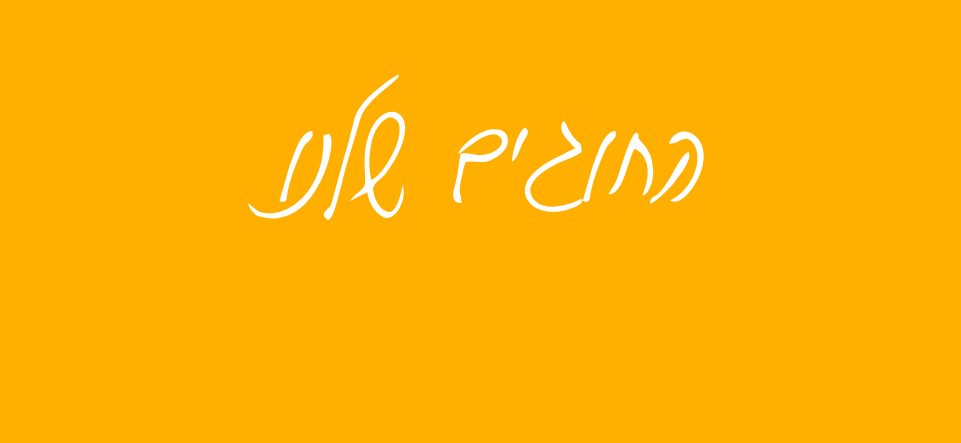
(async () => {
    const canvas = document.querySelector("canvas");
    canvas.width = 961;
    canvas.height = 443;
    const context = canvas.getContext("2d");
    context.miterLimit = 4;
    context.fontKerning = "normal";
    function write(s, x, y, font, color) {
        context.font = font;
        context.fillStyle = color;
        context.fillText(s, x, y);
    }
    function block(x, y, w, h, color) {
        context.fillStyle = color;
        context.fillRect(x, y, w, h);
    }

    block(0, 0, 961, 443, "rgb(255, 175, 0)");
    context.direction = "rtl";
    write("החוגים שלנו", 704, 206, "140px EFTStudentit", "rgb(255, 255, 255)");
})();
